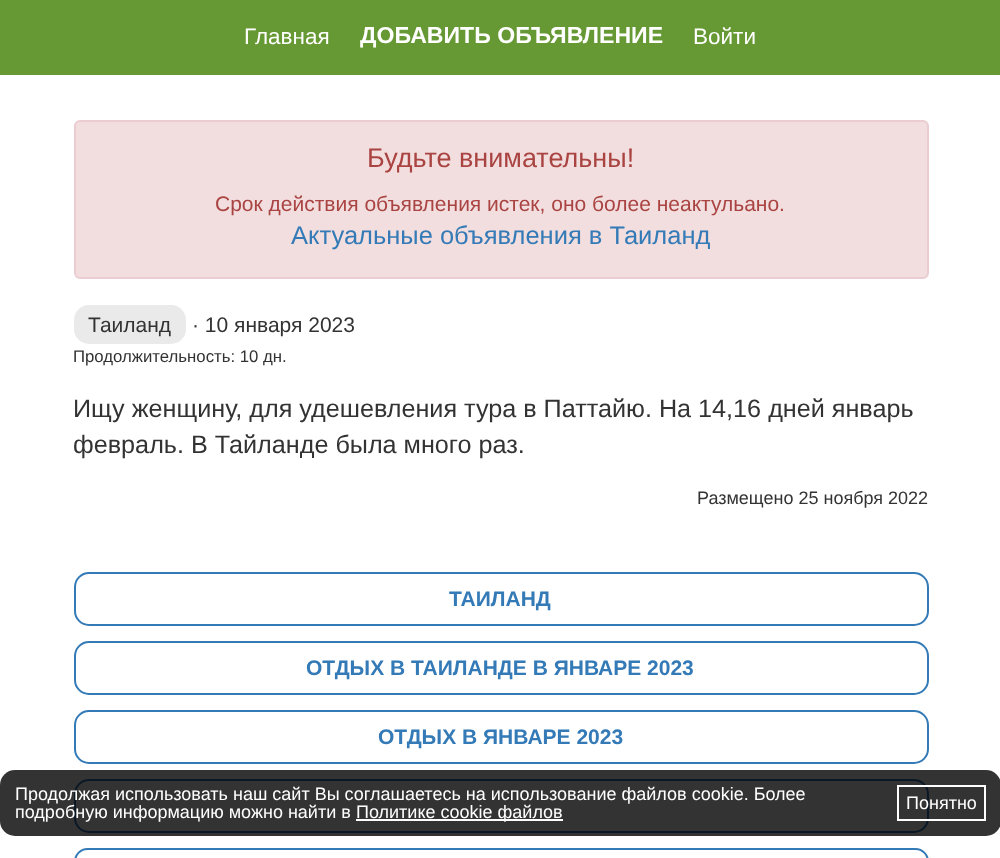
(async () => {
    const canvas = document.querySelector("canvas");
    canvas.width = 1000;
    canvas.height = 858;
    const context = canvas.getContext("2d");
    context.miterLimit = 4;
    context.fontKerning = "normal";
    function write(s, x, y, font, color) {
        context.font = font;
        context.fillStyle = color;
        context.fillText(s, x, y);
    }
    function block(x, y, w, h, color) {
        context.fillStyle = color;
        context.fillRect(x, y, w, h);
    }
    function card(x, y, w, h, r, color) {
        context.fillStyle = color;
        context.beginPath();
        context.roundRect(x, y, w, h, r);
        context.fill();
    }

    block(0, 0, 1000, 858, "rgb(255, 255, 255)");
    block(0, 0, 1000, 75, "rgb(102, 153, 51)");
    write("Главная", 244, 44, "22.5px Liberation Sans", "rgb(255, 255, 255)");
    write("ДОБАВИТЬ ОБЪЯВЛЕНИЕ", 360, 43, "bold 23.1px Liberation Sans", "rgb(255, 255, 255)");
    write("Войти", 693, 44, "22.5px Liberation Sans", "rgb(255, 255, 255)");
    context.fillStyle = "rgb(242, 222, 222)";
    context.beginPath();
    context.roundRect(75, 121, 853, 157, 5);
    context.fill();
    context.strokeStyle = "rgb(235, 204, 209)";
    context.lineWidth = 2;
    context.stroke();
    write("Будьте внимательны!", 367, 167, "27px Liberation Sans", "rgb(169, 68, 66)");
    write("Срок действия объявления истек, оно более неактульано.", 215, 211, "21px Liberation Sans", "rgb(169, 68, 66)");
    write("Актуальные объявления в Таиланд", 291, 244, "25.5px Liberation Sans", "rgb(51, 122, 183)");
    card(74, 305, 112, 39, 15, "rgb(234, 234, 234)");
    write("Таиланд", 88, 332, "21px Liberation Sans", "rgb(51, 51, 51)");
    write("· 10 января 2023", 192, 332, "21px Liberation Sans", "rgb(51, 51, 51)");
    write("Продолжительность: 10 дн.", 73, 362, "16.75px Liberation Sans", "rgb(51, 51, 51)");
    write("Ищу женщину, для удешевления тура в Паттайю. На 14,16 дней январь", 73, 417, "25.2px Liberation Sans", "rgb(51, 51, 51)");
    write("февраль. В Тайланде была много раз.", 73, 453, "25.2px Liberation Sans", "rgb(51, 51, 51)");
    write("Размещено 25 ноября 2022", 697, 504, "18px Liberation Sans", "rgb(51, 51, 51)");
    context.beginPath();
    context.roundRect(75, 573, 853, 52, 14);
    context.strokeStyle = "rgb(51, 122, 183)";
    context.stroke();
    write("ТАИЛАНД", 449, 606, "bold 21px Liberation Sans", "rgb(51, 122, 183)");
    context.beginPath();
    context.roundRect(75, 642, 853, 52, 14);
    context.stroke();
    write("ОТДЫХ В ТАИЛАНДЕ В ЯНВАРЕ 2023", 306, 675, "bold 21px Liberation Sans", "rgb(51, 122, 183)");
    context.beginPath();
    context.roundRect(75, 711, 853, 52, 14);
    context.stroke();
    write("ОТДЫХ В ЯНВАРЕ 2023", 378, 744, "bold 21px Liberation Sans", "rgb(51, 122, 183)");
    context.beginPath();
    context.roundRect(75, 780, 853, 52, 14);
    context.stroke();
    context.beginPath();
    context.roundRect(75, 849, 853, 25, 14);
    context.stroke();
    card(0, 770, 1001, 66, 15, "rgba(0, 0, 0, 0.8)");
    write("Продолжая использовать наш сайт Вы соглашаетесь на использование файлов cookie. Более", 15, 800, "18px Liberation Sans", "rgb(255, 255, 255)");
    write("подробную информацию можно найти в", 15, 818, "18px Liberation Sans", "rgb(255, 255, 255)");
    block(356, 819, 207, 2, "rgb(255, 255, 255)");
    write("Политике cookie файлов", 356, 818, "18px Liberation Sans", "rgb(255, 255, 255)");
    context.strokeStyle = "rgb(255, 255, 255)";
    context.strokeRect(898, 786, 87, 34);
    write("Понятно", 906, 809, "18px Liberation Sans", "rgb(255, 255, 255)");
})();
